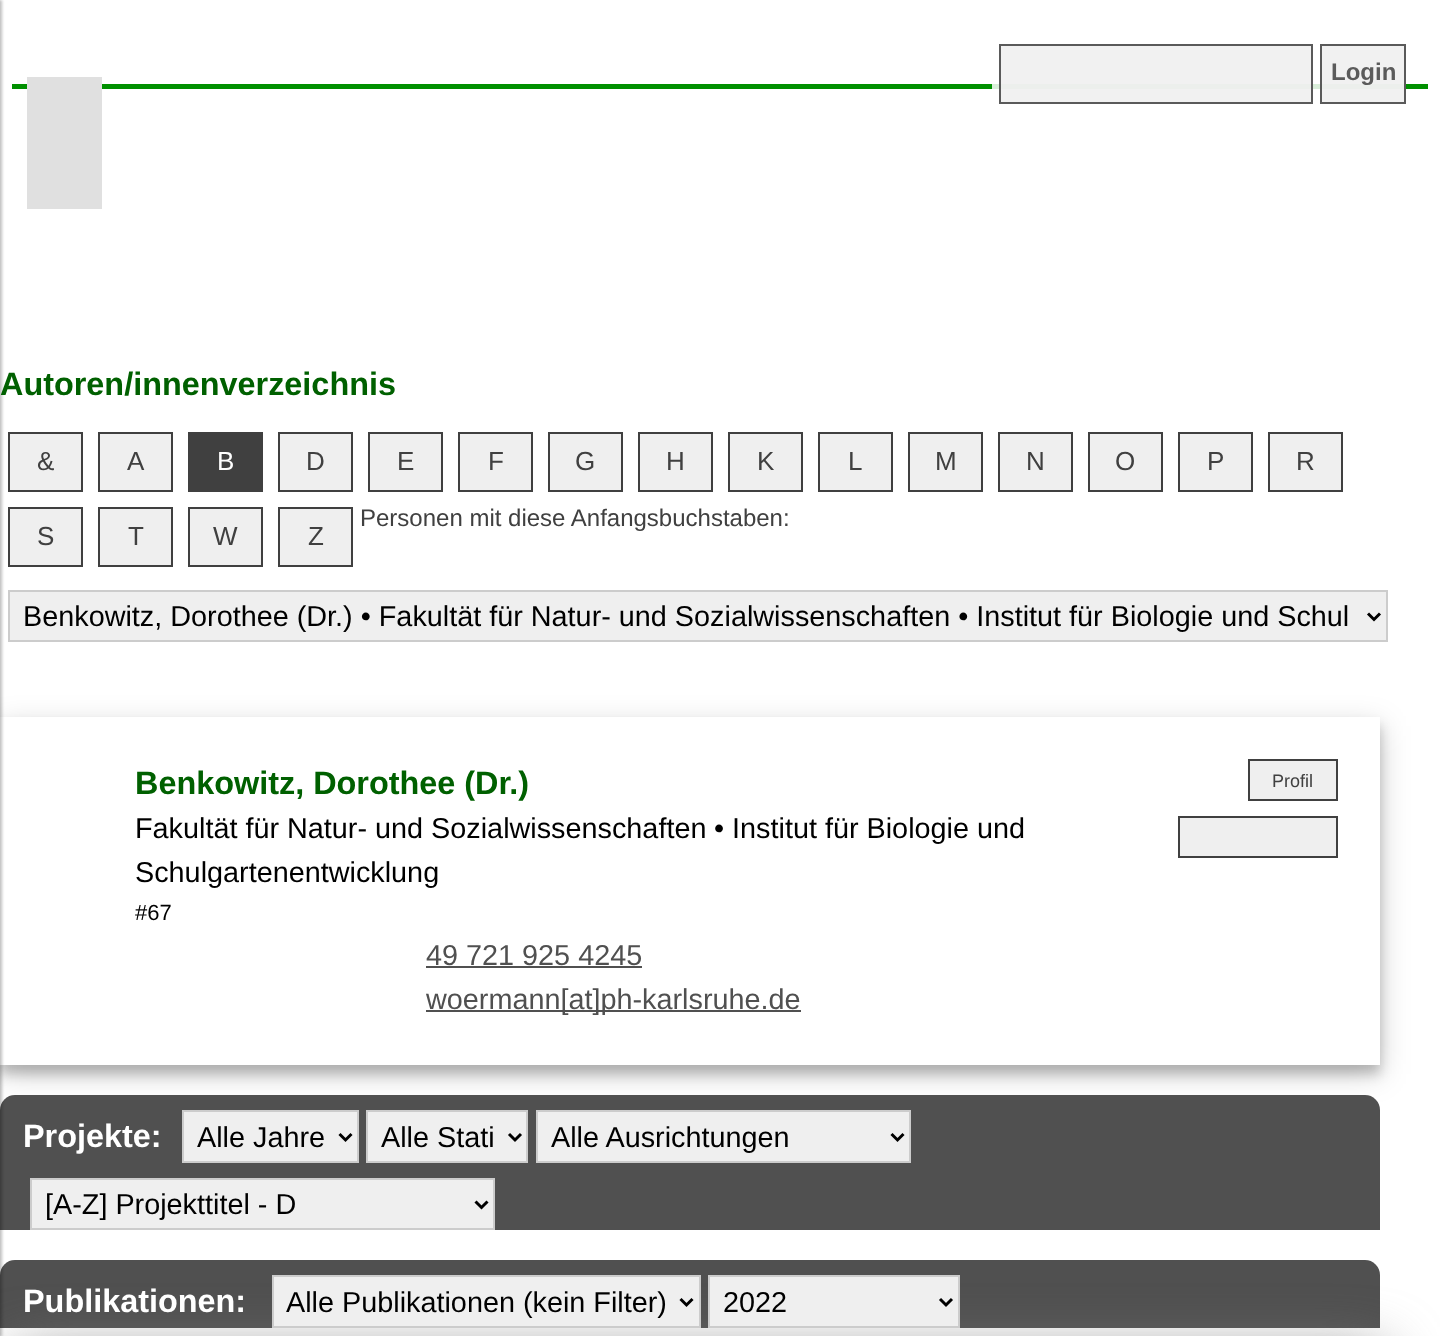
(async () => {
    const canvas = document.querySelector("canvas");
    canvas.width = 1440;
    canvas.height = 1336;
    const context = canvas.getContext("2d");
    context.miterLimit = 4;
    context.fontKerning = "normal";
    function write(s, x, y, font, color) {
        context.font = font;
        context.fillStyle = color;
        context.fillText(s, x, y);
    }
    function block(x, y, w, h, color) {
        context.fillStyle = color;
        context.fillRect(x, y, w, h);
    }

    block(0, 0, 1440, 1336, "rgb(255, 255, 255)");
    block(1320, 44, 86, 60, "rgb(241, 241, 241)");
    block(999, 44, 314, 60, "rgb(241, 241, 241)");
    block(12, 84, 1416, 5, "rgb(0, 144, 0)");
    block(992, 84, 328, 5, "rgb(217, 238, 217)");
    block(1320, 84, 86, 5, "rgb(236, 239, 236)");
    block(999, 84, 314, 5, "rgb(236, 239, 236)");
    context.save();
    context.beginPath();
    context.moveTo(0, 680);
    context.lineTo(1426, 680);
    context.lineTo(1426, 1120);
    context.lineTo(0, 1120);
    context.closePath();
    context.moveTo(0, 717);
    context.lineTo(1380, 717);
    context.lineTo(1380, 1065);
    context.lineTo(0, 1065);
    context.closePath();
    context.clip("evenodd");
    context.fillStyle = "rgba(0, 0, 0, 0.19)";
    context.filter = "blur(15px)";
    context.beginPath();
    context.rect(0, 726, 1380, 348);
    context.fill();
    context.filter = "none";
    context.restore();
    context.fillStyle = "rgb(80, 80, 80)";
    context.beginPath();
    context.roundRect(0, 1095, 1380, 135, [15, 15, 0, 0]);
    context.fill();
    context.beginPath();
    context.roundRect(0, 1260, 1380, 68, [15, 15, 0, 0]);
    context.fill();
    context.fillStyle = "rgba(0, 0, 0, 0.25)";
    context.filter = "blur(1.5px)";
    context.beginPath();
    context.rect(-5, 0, 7, 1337);
    context.fill();
    context.filter = "none";
    block(27, 77, 75, 132, "rgb(224, 224, 224)");
    context.strokeStyle = "rgba(64, 64, 64, 0.85)";
    context.lineWidth = 2;
    context.strokeRect(1000, 45, 312, 58);
    context.strokeRect(1321, 45, 84, 58);
    write("Login", 1331, 80, "bold 24px Liberation Sans", "rgb(91, 91, 91)");
    write("Autoren/innenverzeichnis", 0, 395, "bold 32.4px Liberation Sans", "rgb(0, 96, 0)");
    context.fillStyle = "rgb(239, 239, 239)";
    context.beginPath();
    context.rect(9, 433, 73, 58);
    context.fill();
    context.strokeStyle = "rgb(64, 64, 64)";
    context.stroke();
    write("&", 37, 470, "26px Liberation Sans", "rgb(64, 64, 64)");
    context.fillStyle = "rgb(239, 239, 239)";
    context.beginPath();
    context.rect(99, 433, 73, 58);
    context.fill();
    context.stroke();
    write("A", 127, 470, "26px Liberation Sans", "rgb(64, 64, 64)");
    block(188, 432, 75, 60, "rgb(64, 64, 64)");
    write("B", 217, 470, "26px Liberation Sans", "rgb(255, 255, 255)");
    context.fillStyle = "rgb(239, 239, 239)";
    context.beginPath();
    context.rect(279, 433, 73, 58);
    context.fill();
    context.stroke();
    write("D", 306, 470, "26px Liberation Sans", "rgb(64, 64, 64)");
    context.fillStyle = "rgb(239, 239, 239)";
    context.beginPath();
    context.rect(369, 433, 73, 58);
    context.fill();
    context.stroke();
    write("E", 397, 470, "26px Liberation Sans", "rgb(64, 64, 64)");
    context.fillStyle = "rgb(239, 239, 239)";
    context.beginPath();
    context.rect(459, 433, 73, 58);
    context.fill();
    context.stroke();
    write("F", 488, 470, "26px Liberation Sans", "rgb(64, 64, 64)");
    context.fillStyle = "rgb(239, 239, 239)";
    context.beginPath();
    context.rect(549, 433, 73, 58);
    context.fill();
    context.stroke();
    write("G", 575, 470, "26px Liberation Sans", "rgb(64, 64, 64)");
    context.fillStyle = "rgb(239, 239, 239)";
    context.beginPath();
    context.rect(639, 433, 73, 58);
    context.fill();
    context.stroke();
    write("H", 666, 470, "26px Liberation Sans", "rgb(64, 64, 64)");
    context.fillStyle = "rgb(239, 239, 239)";
    context.beginPath();
    context.rect(729, 433, 73, 58);
    context.fill();
    context.stroke();
    write("K", 757, 470, "26px Liberation Sans", "rgb(64, 64, 64)");
    context.fillStyle = "rgb(239, 239, 239)";
    context.beginPath();
    context.rect(819, 433, 73, 58);
    context.fill();
    context.stroke();
    write("L", 848, 470, "26px Liberation Sans", "rgb(64, 64, 64)");
    context.fillStyle = "rgb(239, 239, 239)";
    context.beginPath();
    context.rect(909, 433, 73, 58);
    context.fill();
    context.stroke();
    write("M", 935, 470, "26px Liberation Sans", "rgb(64, 64, 64)");
    context.fillStyle = "rgb(239, 239, 239)";
    context.beginPath();
    context.rect(999, 433, 73, 58);
    context.fill();
    context.stroke();
    write("N", 1026, 470, "26px Liberation Sans", "rgb(64, 64, 64)");
    context.fillStyle = "rgb(239, 239, 239)";
    context.beginPath();
    context.rect(1089, 433, 73, 58);
    context.fill();
    context.stroke();
    write("O", 1115, 470, "26px Liberation Sans", "rgb(64, 64, 64)");
    context.fillStyle = "rgb(239, 239, 239)";
    context.beginPath();
    context.rect(1179, 433, 73, 58);
    context.fill();
    context.stroke();
    write("P", 1207, 470, "26px Liberation Sans", "rgb(64, 64, 64)");
    context.fillStyle = "rgb(239, 239, 239)";
    context.beginPath();
    context.rect(1269, 433, 73, 58);
    context.fill();
    context.stroke();
    write("R", 1296, 470, "26px Liberation Sans", "rgb(64, 64, 64)");
    context.fillStyle = "rgb(239, 239, 239)";
    context.beginPath();
    context.rect(9, 508, 73, 58);
    context.fill();
    context.stroke();
    write("S", 37, 545, "26px Liberation Sans", "rgb(64, 64, 64)");
    context.fillStyle = "rgb(239, 239, 239)";
    context.beginPath();
    context.rect(99, 508, 73, 58);
    context.fill();
    context.stroke();
    write("T", 128, 545, "26px Liberation Sans", "rgb(64, 64, 64)");
    context.fillStyle = "rgb(239, 239, 239)";
    context.beginPath();
    context.rect(189, 508, 73, 58);
    context.fill();
    context.stroke();
    write("W", 213, 545, "26px Liberation Sans", "rgb(64, 64, 64)");
    context.fillStyle = "rgb(239, 239, 239)";
    context.beginPath();
    context.rect(279, 508, 73, 58);
    context.fill();
    context.stroke();
    write("Z", 308, 545, "26px Liberation Sans", "rgb(64, 64, 64)");
    write("Personen mit diese Anfangsbuchstaben:", 360, 526, "24px Liberation Sans", "rgb(64, 64, 64)");
    context.fillStyle = "rgb(239, 239, 239)";
    context.beginPath();
    context.rect(9, 591, 1378, 50);
    context.fill();
    context.strokeStyle = "rgb(204, 204, 204)";
    context.stroke();
    context.beginPath();
    context.moveTo(1368, 613.5);
    context.lineTo(1374, 619.5);
    context.lineTo(1380, 613.5);
    context.strokeStyle = "rgb(0, 0, 0)";
    context.lineWidth = 3;
    context.stroke();
    write("Benkowitz, Dorothee (Dr.) • Fakultät für Natur- und Sozialwissenschaften • Institut für Biologie und Schul", 23, 626, "28.8px Liberation Sans", "rgb(0, 0, 0)");
    context.save();
    context.beginPath();
    context.moveTo(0, 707);
    context.lineTo(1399, 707);
    context.lineTo(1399, 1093);
    context.lineTo(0, 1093);
    context.closePath();
    context.moveTo(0, 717);
    context.lineTo(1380, 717);
    context.lineTo(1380, 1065);
    context.lineTo(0, 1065);
    context.closePath();
    context.clip("evenodd");
    context.fillStyle = "rgba(0, 0, 0, 0.2)";
    context.filter = "blur(6px)";
    context.beginPath();
    context.rect(0, 726, 1380, 348);
    context.fill();
    context.filter = "none";
    context.restore();
    write("Benkowitz, Dorothee (Dr.)", 135, 794, "bold 32.4px Liberation Sans", "rgb(0, 96, 0)");
    write("Fakultät für Natur- und Sozialwissenschaften", 135, 838, "28.8px Liberation Sans", "rgb(0, 0, 0)");
    write("• Institut für Biologie und", 714, 838, "28.8px Liberation Sans", "rgb(0, 0, 0)");
    write("Schulgartenentwicklung", 135, 882, "28.8px Liberation Sans", "rgb(0, 0, 0)");
    write("#67", 135, 920, "22px Liberation Sans", "rgb(0, 0, 0)");
    write("49 721 925 4245", 426, 965, "28.8px Liberation Sans", "rgb(80, 80, 80)");
    block(426, 966, 216, 2, "rgb(80, 80, 80)");
    block(426, 1010, 375, 2, "rgb(80, 80, 80)");
    write("woermann[at]ph-karlsruhe.de", 426, 1009, "28.8px Liberation Sans", "rgb(80, 80, 80)");
    context.fillStyle = "rgb(239, 239, 239)";
    context.beginPath();
    context.rect(1249, 760, 88, 40);
    context.fill();
    context.strokeStyle = "rgb(64, 64, 64)";
    context.lineWidth = 2;
    context.stroke();
    write("Profil", 1272, 787, "18px Liberation Sans", "rgb(64, 64, 64)");
    context.fillStyle = "rgb(239, 239, 239)";
    context.beginPath();
    context.rect(1179, 817, 158, 40);
    context.fill();
    context.stroke();
    write("Projekte:", 23, 1147, "bold 32.4px Liberation Sans", "rgb(255, 255, 255)");
    context.fillStyle = "rgb(239, 239, 239)";
    context.beginPath();
    context.rect(183, 1111, 175, 51);
    context.fill();
    context.strokeStyle = "rgb(204, 204, 204)";
    context.stroke();
    context.beginPath();
    context.moveTo(339.5, 1134);
    context.lineTo(345.5, 1140);
    context.lineTo(351.5, 1134);
    context.strokeStyle = "rgb(0, 0, 0)";
    context.lineWidth = 3;
    context.stroke();
    write("Alle Jahre", 197, 1147, "28.8px Liberation Sans", "rgb(0, 0, 0)");
    context.fillStyle = "rgb(239, 239, 239)";
    context.beginPath();
    context.rect(367, 1111, 160, 51);
    context.fill();
    context.strokeStyle = "rgb(204, 204, 204)";
    context.lineWidth = 2;
    context.stroke();
    context.beginPath();
    context.moveTo(509, 1134);
    context.lineTo(515, 1140);
    context.lineTo(521, 1134);
    context.strokeStyle = "rgb(0, 0, 0)";
    context.lineWidth = 3;
    context.stroke();
    write("Alle Stati", 381, 1147, "28.8px Liberation Sans", "rgb(0, 0, 0)");
    context.fillStyle = "rgb(239, 239, 239)";
    context.beginPath();
    context.rect(537, 1111, 373, 51);
    context.fill();
    context.strokeStyle = "rgb(204, 204, 204)";
    context.lineWidth = 2;
    context.stroke();
    context.beginPath();
    context.moveTo(891.5, 1134);
    context.lineTo(897.5, 1140);
    context.lineTo(903.5, 1134);
    context.strokeStyle = "rgb(0, 0, 0)";
    context.lineWidth = 3;
    context.stroke();
    write("Alle Ausrichtungen", 551, 1147, "28.8px Liberation Sans", "rgb(0, 0, 0)");
    context.fillStyle = "rgb(239, 239, 239)";
    context.beginPath();
    context.rect(31, 1179, 463, 50);
    context.fill();
    context.strokeStyle = "rgb(204, 204, 204)";
    context.lineWidth = 2;
    context.stroke();
    context.beginPath();
    context.moveTo(475.5, 1201.5);
    context.lineTo(481.5, 1207.5);
    context.lineTo(487.5, 1201.5);
    context.strokeStyle = "rgb(0, 0, 0)";
    context.lineWidth = 3;
    context.stroke();
    write("[A-Z] Projekttitel - D", 45, 1214, "28.8px Liberation Sans", "rgb(0, 0, 0)");
    context.fillStyle = "rgb(128, 128, 128)";
    context.filter = "blur(30px)";
    context.beginPath();
    context.rect(12, 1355, 1371, 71);
    context.fill();
    context.filter = "none";
    write("Publikationen:", 23, 1312, "bold 32.4px Liberation Sans", "rgb(255, 255, 255)");
    context.fillStyle = "rgb(239, 239, 239)";
    context.beginPath();
    context.rect(273, 1276, 427, 51);
    context.fill();
    context.strokeStyle = "rgb(204, 204, 204)";
    context.lineWidth = 2;
    context.stroke();
    context.beginPath();
    context.moveTo(680.5, 1299);
    context.lineTo(686.5, 1305);
    context.lineTo(692.5, 1299);
    context.strokeStyle = "rgb(0, 0, 0)";
    context.lineWidth = 3;
    context.stroke();
    write("Alle Publikationen (kein Filter)", 286, 1312, "28.8px Liberation Sans", "rgb(0, 0, 0)");
    context.fillStyle = "rgb(239, 239, 239)";
    context.beginPath();
    context.rect(709, 1276, 250, 51);
    context.fill();
    context.strokeStyle = "rgb(204, 204, 204)";
    context.lineWidth = 2;
    context.stroke();
    context.beginPath();
    context.moveTo(940, 1299);
    context.lineTo(946, 1305);
    context.lineTo(952, 1299);
    context.strokeStyle = "rgb(0, 0, 0)";
    context.lineWidth = 3;
    context.stroke();
    write("2022", 723, 1312, "28.8px Liberation Sans", "rgb(0, 0, 0)");
})();
